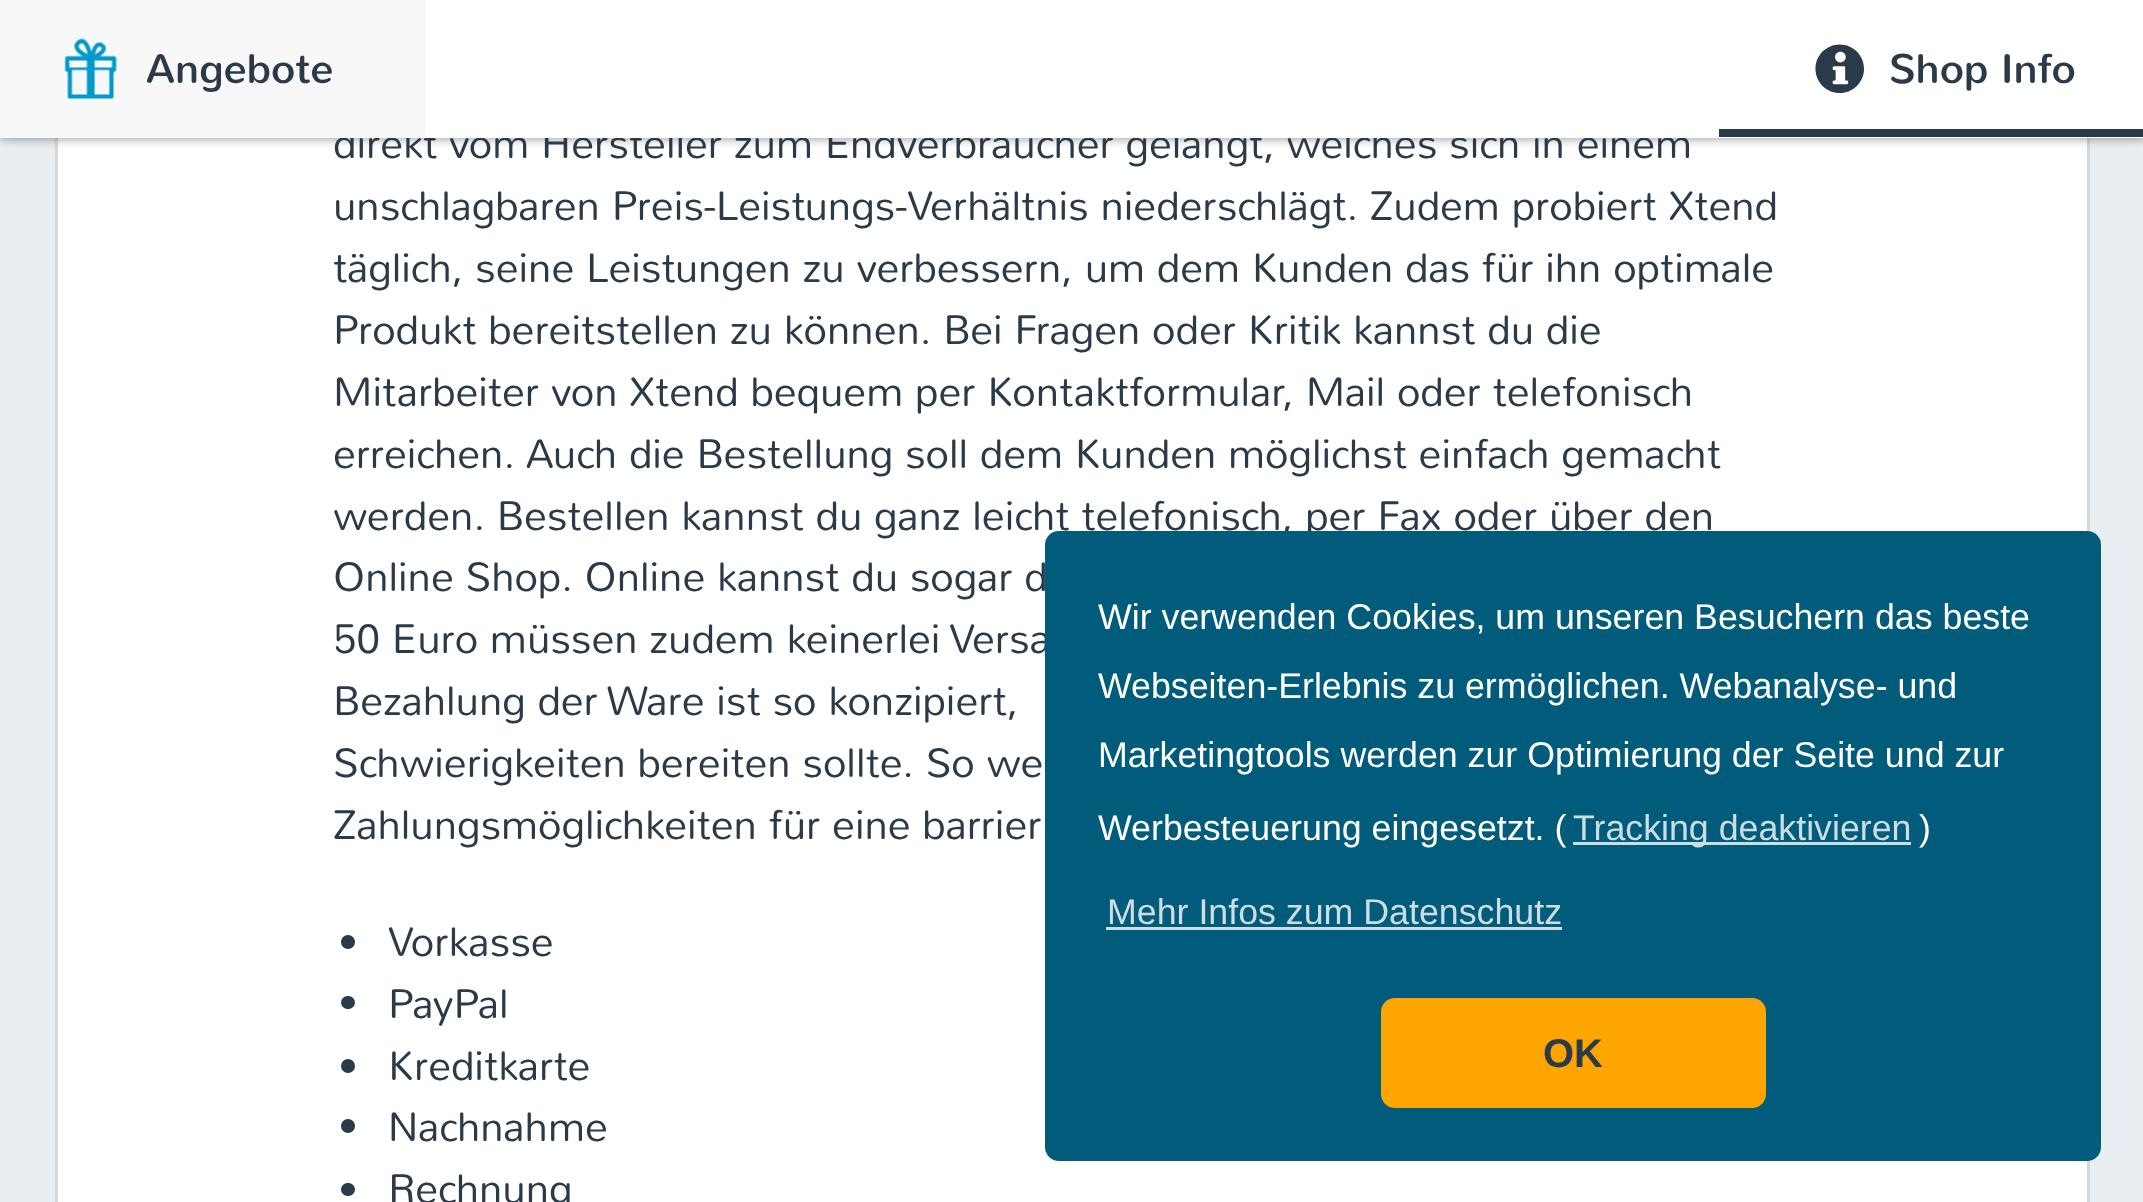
(async () => {
    const canvas = document.querySelector("canvas");
    canvas.width = 2143;
    canvas.height = 1202;
    const context = canvas.getContext("2d");
    context.miterLimit = 4;
    context.fontKerning = "normal";
    function write(s, x, y, font, color) {
        context.font = font;
        context.fillStyle = color;
        context.fillText(s, x, y);
    }
    function block(x, y, w, h, color) {
        context.fillStyle = color;
        context.fillRect(x, y, w, h);
    }
    function card(x, y, w, h, r, color) {
        context.fillStyle = color;
        context.beginPath();
        context.roundRect(x, y, w, h, r);
        context.fill();
    }
    async function photo(src, x, y, w, h) {
        const img = new Image();
        img.src = src;
        await img.decode();
        context.drawImage(img, x, y, w, h);
    }

    block(0, 0, 2143, 1202, "rgb(232, 238, 241)");
    block(58, 138, 2029, 1064, "rgb(255, 255, 255)");
    context.strokeStyle = "rgb(216, 216, 216)";
    context.lineWidth = 3;
    context.strokeRect(56.5, -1.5, 2032, 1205);
    context.fillStyle = "rgba(0, 0, 0, 0.45)";
    context.filter = "blur(5.5px)";
    context.beginPath();
    context.rect(0, 0, 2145, 138);
    context.fill();
    context.filter = "none";
    write("direkt vom Hersteller zum Endverbraucher gelangt, welches sich in einem", 333, 158, "300 41.25px Nunito", "rgb(42, 58, 72)");
    block(426, 0, 1717, 138, "rgb(255, 255, 255)");
    block(0, 0, 426, 138, "rgb(248, 248, 248)");
    await photo("media/1.png", 64, 38, 53, 62);
    write("Angebote", 146, 83, "41.25px Nunito", "rgb(42, 58, 72)");
    block(1719, 129, 424, 8, "rgb(42, 58, 72)");
    await photo("media/2.png", 1815, 44, 49, 49);
    write("Shop Info", 1889, 83, "41.25px Nunito", "rgb(42, 58, 72)");
    write("unschlagbaren Preis-Leistungs-Verhältnis niederschlägt. Zudem probiert Xtend", 333, 220, "300 41.25px Nunito", "rgb(42, 58, 72)");
    write("täglich, seine Leistungen zu verbessern, um dem Kunden das für ihn optimale", 333, 282, "300 41.25px Nunito", "rgb(42, 58, 72)");
    write("Produkt bereitstellen zu können. Bei Fragen oder Kritik kannst du die", 333, 344, "300 41.25px Nunito", "rgb(42, 58, 72)");
    write("Mitarbeiter von Xtend bequem per Kontaktformular, Mail oder telefonisch", 333, 406, "300 41.25px Nunito", "rgb(42, 58, 72)");
    write("erreichen. Auch die Bestellung soll dem Kunden möglichst einfach gemacht", 333, 468, "300 41.25px Nunito", "rgb(42, 58, 72)");
    write("werden. Bestellen kannst du ganz leicht telefonisch, per Fax oder über den", 333, 530, "300 41.25px Nunito", "rgb(42, 58, 72)");
    write("Online Shop. Online kannst du sogar d", 333, 591, "300 41.25px Nunito", "rgb(42, 58, 72)");
    write("50 Euro müssen zudem keinerlei Versa", 333, 653, "300 41.25px Nunito", "rgb(42, 58, 72)");
    write("Bezahlung der Ware ist so konzipiert,", 333, 715, "300 41.25px Nunito", "rgb(42, 58, 72)");
    write("Schwierigkeiten bereiten sollte. So we", 333, 777, "300 41.25px Nunito", "rgb(42, 58, 72)");
    write("Zahlungsmöglichkeiten für eine barrier", 333, 839, "300 41.25px Nunito", "rgb(42, 58, 72)");
    context.beginPath();
    context.arc(348, 942, 7, 0, Math.PI * 2);
    context.fill();
    write("Vorkasse", 388, 956, "300 41.25px Nunito", "rgb(42, 58, 72)");
    card(341, 996, 14, 13, 6.5, "rgb(42, 58, 72)");
    write("PayPal", 388, 1018, "300 41.25px Nunito", "rgb(42, 58, 72)");
    context.beginPath();
    context.arc(348, 1066, 7, 0, Math.PI * 2);
    context.fill();
    write("Kreditkarte", 388, 1080, "300 41.25px Nunito", "rgb(42, 58, 72)");
    context.beginPath();
    context.arc(348, 1126, 7, 0, Math.PI * 2);
    context.fill();
    write("Nachnahme", 388, 1141, "300 41.25px Nunito", "rgb(42, 58, 72)");
    card(341, 1183, 14, 13, 6.5, "rgb(42, 58, 72)");
    write("Rechnung", 388, 1203, "300 41.25px Nunito", "rgb(42, 58, 72)");
    card(1045, 531, 1056, 630, 14, "rgb(0, 92, 122)");
    write("Wir verwenden Cookies, um unseren Besuchern das beste", 1098, 629, "35.75px Liberation Sans", "rgb(255, 255, 255)");
    write("Webseiten-Erlebnis zu ermöglichen. Webanalyse- und", 1098, 698, "35.75px Liberation Sans", "rgb(255, 255, 255)");
    write("Marketingtools werden zur Optimierung der Seite und zur", 1098, 767, "35.75px Liberation Sans", "rgb(255, 255, 255)");
    write("Werbesteuerung eingesetzt. (", 1098, 840, "35.75px Liberation Sans", "rgb(255, 255, 255)");
    block(1573, 842, 338, 3, "rgb(204, 222, 228)");
    write("Tracking deaktivieren", 1573, 840, "35.75px Liberation Sans", "rgb(204, 222, 228)");
    write(")", 1919, 840, "35.75px Liberation Sans", "rgb(255, 255, 255)");
    write("Mehr Infos zum Datenschutz", 1107, 924, "35.75px Liberation Sans", "rgb(204, 222, 228)");
    block(1106, 927, 456, 3, "rgb(204, 222, 228)");
    card(1381, 998, 385, 110, 14, "rgb(255, 165, 1)");
    write("OK", 1543, 1067, "bold 40px Liberation Sans", "rgb(42, 58, 72)");
})();
